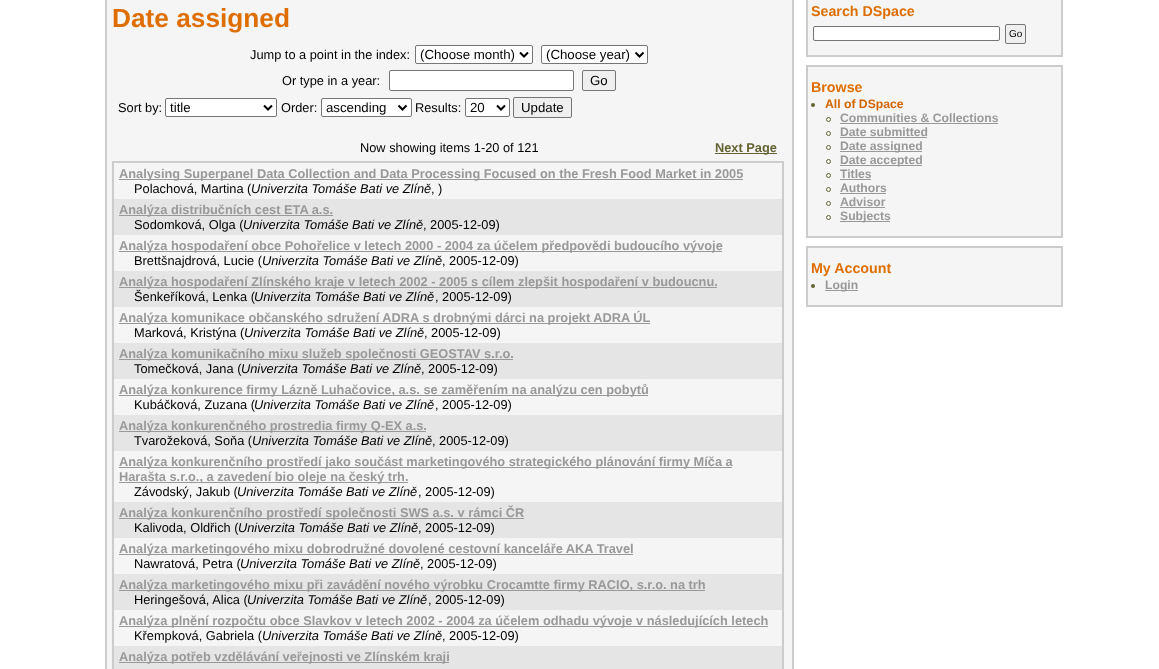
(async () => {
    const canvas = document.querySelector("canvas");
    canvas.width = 1159;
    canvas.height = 669;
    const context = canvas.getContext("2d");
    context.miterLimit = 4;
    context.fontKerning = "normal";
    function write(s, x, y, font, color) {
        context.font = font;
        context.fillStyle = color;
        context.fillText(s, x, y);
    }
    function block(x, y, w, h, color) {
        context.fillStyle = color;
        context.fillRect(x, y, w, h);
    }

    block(0, 0, 1159, 669, "rgb(255, 255, 255)");
    context.fillStyle = "rgb(245, 245, 245)";
    context.beginPath();
    context.rect(106, -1, 687, 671);
    context.fill();
    context.strokeStyle = "rgb(204, 204, 204)";
    context.lineWidth = 2;
    context.stroke();
    write("Date assigned", 112, 27, "bold 26.25px Liberation Sans", "rgb(223, 110, 0)");
    write("Jump to a point in the index:", 250, 59, "12.8px Liberation Sans", "rgb(0, 0, 0)");
    context.fillStyle = "rgb(255, 255, 255)";
    context.beginPath();
    context.roundRect(415.5, 45.5, 117, 18, 1.5);
    context.fill();
    context.strokeStyle = "rgb(118, 118, 118)";
    context.lineWidth = 1;
    context.stroke();
    context.beginPath();
    context.moveTo(520, 52.5);
    context.lineTo(524, 56.5);
    context.lineTo(528, 52.5);
    context.strokeStyle = "rgb(0, 0, 0)";
    context.lineWidth = 2;
    context.stroke();
    write("(Choose month)", 420, 59, "13.25px Liberation Sans", "rgb(0, 0, 0)");
    context.fillStyle = "rgb(255, 255, 255)";
    context.beginPath();
    context.roundRect(541.5, 45.5, 106, 18, 1.5);
    context.fill();
    context.strokeStyle = "rgb(118, 118, 118)";
    context.lineWidth = 1;
    context.stroke();
    context.beginPath();
    context.moveTo(635.5, 52.5);
    context.lineTo(639.5, 56.5);
    context.lineTo(643.5, 52.5);
    context.strokeStyle = "rgb(0, 0, 0)";
    context.lineWidth = 2;
    context.stroke();
    write("(Choose year)", 546, 59, "13.25px Liberation Sans", "rgb(0, 0, 0)");
    write("Or type in a year:", 282, 85, "12.8px Liberation Sans", "rgb(0, 0, 0)");
    context.fillStyle = "rgb(255, 255, 255)";
    context.beginPath();
    context.roundRect(389.5, 70.5, 184, 20, 1.5);
    context.fill();
    context.strokeStyle = "rgb(118, 118, 118)";
    context.lineWidth = 1;
    context.stroke();
    context.fillStyle = "rgb(239, 239, 239)";
    context.beginPath();
    context.roundRect(582.5, 70.5, 33, 20, 1.5);
    context.fill();
    context.stroke();
    write("Go", 590, 85, "13.25px Liberation Sans", "rgb(0, 0, 0)");
    write("Sort by:", 118, 112, "12.8px Liberation Sans", "rgb(0, 0, 0)");
    context.fillStyle = "rgb(255, 255, 255)";
    context.beginPath();
    context.roundRect(165.5, 98.5, 111, 18, 1.5);
    context.fill();
    context.stroke();
    context.beginPath();
    context.moveTo(264, 105.5);
    context.lineTo(268, 109.5);
    context.lineTo(272, 105.5);
    context.strokeStyle = "rgb(0, 0, 0)";
    context.lineWidth = 2;
    context.stroke();
    write("title", 170, 112, "13.25px Liberation Sans", "rgb(0, 0, 0)");
    write("Order:", 281, 112, "12.8px Liberation Sans", "rgb(0, 0, 0)");
    context.fillStyle = "rgb(255, 255, 255)";
    context.beginPath();
    context.roundRect(321.5, 98.5, 90, 18, 1.5);
    context.fill();
    context.strokeStyle = "rgb(118, 118, 118)";
    context.lineWidth = 1;
    context.stroke();
    context.beginPath();
    context.moveTo(398.5, 105.5);
    context.lineTo(402.5, 109.5);
    context.lineTo(406.5, 105.5);
    context.strokeStyle = "rgb(0, 0, 0)";
    context.lineWidth = 2;
    context.stroke();
    write("ascending", 326, 112, "13.25px Liberation Sans", "rgb(0, 0, 0)");
    write("Results:", 415, 112, "12.8px Liberation Sans", "rgb(0, 0, 0)");
    context.fillStyle = "rgb(255, 255, 255)";
    context.beginPath();
    context.roundRect(465.5, 98.5, 44, 18, 1.5);
    context.fill();
    context.strokeStyle = "rgb(118, 118, 118)";
    context.lineWidth = 1;
    context.stroke();
    context.beginPath();
    context.moveTo(497, 105.5);
    context.lineTo(501, 109.5);
    context.lineTo(505, 105.5);
    context.strokeStyle = "rgb(0, 0, 0)";
    context.lineWidth = 2;
    context.stroke();
    write("20", 470, 112, "13.25px Liberation Sans", "rgb(0, 0, 0)");
    context.fillStyle = "rgb(239, 239, 239)";
    context.beginPath();
    context.roundRect(513.5, 97.5, 58, 20, 1.5);
    context.fill();
    context.strokeStyle = "rgb(118, 118, 118)";
    context.lineWidth = 1;
    context.stroke();
    write("Update", 521, 112, "13.25px Liberation Sans", "rgb(0, 0, 0)");
    write("Now showing items 1-20 of 121", 360, 152, "12.8px Liberation Sans", "rgb(0, 0, 0)");
    block(715, 153, 62, 1, "rgb(100, 100, 50)");
    write("Next Page", 715, 152, "bold 12.8px Liberation Sans", "rgb(100, 100, 50)");
    context.strokeStyle = "rgb(204, 204, 204)";
    context.lineWidth = 2;
    context.strokeRect(113, 162, 670, 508);
    block(119, 179, 624, 1, "rgb(153, 153, 153)");
    write("Analysing Superpanel Data Collection and Data Processing Focused on the Fresh Food Market in 2005", 119, 178, "bold 12.8px Liberation Sans", "rgb(153, 153, 153)");
    write("Polachová, Martina (", 134, 193, "12.8px Liberation Sans", "rgb(0, 0, 0)");
    write("Univerzita Tomáše Bati ve Zlíně", 251, 193, "italic 12.8px Liberation Sans", "rgb(0, 0, 0)");
    write(", )", 431, 193, "12.8px Liberation Sans", "rgb(0, 0, 0)");
    block(114, 199, 668, 36, "rgb(229, 229, 229)");
    block(119, 215, 214, 1, "rgb(153, 153, 153)");
    write("Analýza distribučních cest ETA a.s.", 119, 214, "bold 12.8px Liberation Sans", "rgb(153, 153, 153)");
    write("Sodomková, Olga (", 134, 229, "12.8px Liberation Sans", "rgb(0, 0, 0)");
    write("Univerzita Tomáše Bati ve Zlíně", 243, 229, "italic 12.8px Liberation Sans", "rgb(0, 0, 0)");
    write(", 2005-12-09)", 423, 229, "12.8px Liberation Sans", "rgb(0, 0, 0)");
    block(119, 251, 603, 1, "rgb(153, 153, 153)");
    write("Analýza hospodaření obce Pohořelice v letech 2000 - 2004 za účelem předpovědi budoucího vývoje", 119, 250, "bold 12.8px Liberation Sans", "rgb(153, 153, 153)");
    write("Brettšnajdrová, Lucie (", 134, 265, "12.8px Liberation Sans", "rgb(0, 0, 0)");
    write("Univerzita Tomáše Bati ve Zlíně", 262, 265, "italic 12.8px Liberation Sans", "rgb(0, 0, 0)");
    write(", 2005-12-09)", 442, 265, "12.8px Liberation Sans", "rgb(0, 0, 0)");
    block(114, 271, 668, 36, "rgb(229, 229, 229)");
    block(119, 287, 598, 1, "rgb(153, 153, 153)");
    write("Analýza hospodaření Zlínského kraje v letech 2002 - 2005 s cílem zlepšit hospodaření v budoucnu.", 119, 286, "bold 12.8px Liberation Sans", "rgb(153, 153, 153)");
    write("Šenkeříková, Lenka (", 134, 301, "12.8px Liberation Sans", "rgb(0, 0, 0)");
    write("Univerzita Tomáše Bati ve Zlíně", 254, 301, "italic 12.8px Liberation Sans", "rgb(0, 0, 0)");
    write(", 2005-12-09)", 435, 301, "12.8px Liberation Sans", "rgb(0, 0, 0)");
    block(119, 323, 531, 1, "rgb(153, 153, 153)");
    write("Analýza komunikace občanského sdružení ADRA s drobnými dárci na projekt ADRA ÚL", 119, 322, "bold 12.8px Liberation Sans", "rgb(153, 153, 153)");
    write("Marková, Kristýna (", 134, 337, "12.8px Liberation Sans", "rgb(0, 0, 0)");
    write("Univerzita Tomáše Bati ve Zlíně", 244, 337, "italic 12.8px Liberation Sans", "rgb(0, 0, 0)");
    write(", 2005-12-09)", 424, 337, "12.8px Liberation Sans", "rgb(0, 0, 0)");
    block(114, 343, 668, 36, "rgb(229, 229, 229)");
    block(119, 359, 394, 1, "rgb(153, 153, 153)");
    write("Analýza komunikačního mixu služeb společnosti GEOSTAV s.r.o.", 119, 358, "bold 12.8px Liberation Sans", "rgb(153, 153, 153)");
    write("Tomečková, Jana (", 134, 373, "12.8px Liberation Sans", "rgb(0, 0, 0)");
    write("Univerzita Tomáše Bati ve Zlíně", 241, 373, "italic 12.8px Liberation Sans", "rgb(0, 0, 0)");
    write(", 2005-12-09)", 421, 373, "12.8px Liberation Sans", "rgb(0, 0, 0)");
    block(119, 395, 529, 1, "rgb(153, 153, 153)");
    write("Analýza konkurence firmy Lázně Luhačovice, a.s. se zaměřením na analýzu cen pobytů", 119, 394, "bold 12.8px Liberation Sans", "rgb(153, 153, 153)");
    write("Kubáčková, Zuzana (", 134, 409, "12.8px Liberation Sans", "rgb(0, 0, 0)");
    write("Univerzita Tomáše Bati ve Zlíně", 254, 409, "italic 12.8px Liberation Sans", "rgb(0, 0, 0)");
    write(", 2005-12-09)", 435, 409, "12.8px Liberation Sans", "rgb(0, 0, 0)");
    block(114, 415, 668, 36, "rgb(229, 229, 229)");
    block(119, 431, 307, 1, "rgb(153, 153, 153)");
    write("Analýza konkurenčného prostredia firmy Q-EX a.s.", 119, 430, "bold 12.8px Liberation Sans", "rgb(153, 153, 153)");
    write("Tvarožeková, Soňa (", 134, 445, "12.8px Liberation Sans", "rgb(0, 0, 0)");
    write("Univerzita Tomáše Bati ve Zlíně", 252, 445, "italic 12.8px Liberation Sans", "rgb(0, 0, 0)");
    write(", 2005-12-09)", 432, 445, "12.8px Liberation Sans", "rgb(0, 0, 0)");
    block(119, 467, 613, 1, "rgb(153, 153, 153)");
    write("Analýza konkurenčního prostředí jako součást marketingového strategického plánování firmy Míča a", 119, 466, "bold 12.8px Liberation Sans", "rgb(153, 153, 153)");
    block(119, 482, 289, 1, "rgb(153, 153, 153)");
    write("Harašta s.r.o., a zavedení bio oleje na český trh.", 119, 481, "bold 12.8px Liberation Sans", "rgb(153, 153, 153)");
    write("Závodský, Jakub (", 134, 496, "12.8px Liberation Sans", "rgb(0, 0, 0)");
    write("Univerzita Tomáše Bati ve Zlíně", 237, 496, "italic 12.8px Liberation Sans", "rgb(0, 0, 0)");
    write(", 2005-12-09)", 418, 496, "12.8px Liberation Sans", "rgb(0, 0, 0)");
    block(114, 502, 668, 36, "rgb(229, 229, 229)");
    block(119, 518, 405, 1, "rgb(153, 153, 153)");
    write("Analýza konkurenčního prostředí společnosti SWS a.s. v rámci ČR", 119, 517, "bold 12.8px Liberation Sans", "rgb(153, 153, 153)");
    write("Kalivoda, Oldřich (", 134, 532, "12.8px Liberation Sans", "rgb(0, 0, 0)");
    write("Univerzita Tomáše Bati ve Zlíně", 238, 532, "italic 12.8px Liberation Sans", "rgb(0, 0, 0)");
    write(", 2005-12-09)", 418, 532, "12.8px Liberation Sans", "rgb(0, 0, 0)");
    block(119, 554, 514, 1, "rgb(153, 153, 153)");
    write("Analýza marketingového mixu dobrodružné dovolené cestovní kanceláře AKA Travel", 119, 553, "bold 12.8px Liberation Sans", "rgb(153, 153, 153)");
    write("Nawratová, Petra (", 134, 568, "12.8px Liberation Sans", "rgb(0, 0, 0)");
    write("Univerzita Tomáše Bati ve Zlíně", 240, 568, "italic 12.8px Liberation Sans", "rgb(0, 0, 0)");
    write(", 2005-12-09)", 420, 568, "12.8px Liberation Sans", "rgb(0, 0, 0)");
    block(114, 574, 668, 36, "rgb(229, 229, 229)");
    block(119, 590, 586, 1, "rgb(153, 153, 153)");
    write("Analýza marketingového mixu při zavádění nového výrobku Crocamtte firmy RACIO, s.r.o. na trh", 119, 589, "bold 12.8px Liberation Sans", "rgb(153, 153, 153)");
    write("Heringešová, Alica (", 134, 604, "12.8px Liberation Sans", "rgb(0, 0, 0)");
    write("Univerzita Tomáše Bati ve Zlíně", 247, 604, "italic 12.8px Liberation Sans", "rgb(0, 0, 0)");
    write(", 2005-12-09)", 428, 604, "12.8px Liberation Sans", "rgb(0, 0, 0)");
    block(119, 626, 649, 1, "rgb(153, 153, 153)");
    write("Analýza plnění rozpočtu obce Slavkov v letech 2002 - 2004 za účelem odhadu vývoje v následujících letech", 119, 625, "bold 12.8px Liberation Sans", "rgb(153, 153, 153)");
    write("Křempková, Gabriela (", 134, 640, "12.8px Liberation Sans", "rgb(0, 0, 0)");
    write("Univerzita Tomáše Bati ve Zlíně", 262, 640, "italic 12.8px Liberation Sans", "rgb(0, 0, 0)");
    write(", 2005-12-09)", 442, 640, "12.8px Liberation Sans", "rgb(0, 0, 0)");
    block(114, 646, 668, 23, "rgb(229, 229, 229)");
    block(119, 662, 330, 1, "rgb(153, 153, 153)");
    write("Analýza potřeb vzdělávání veřejnosti ve Zlínském kraji", 119, 661, "bold 12.8px Liberation Sans", "rgb(153, 153, 153)");
    context.fillStyle = "rgb(245, 245, 245)";
    context.beginPath();
    context.rect(807, -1, 255, 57);
    context.fill();
    context.stroke();
    write("Search DSpace", 811, 16, "bold 14.25px Liberation Sans", "rgb(223, 110, 0)");
    context.fillStyle = "rgb(255, 255, 255)";
    context.beginPath();
    context.roundRect(813.5, 26.5, 186, 14, 1.5);
    context.fill();
    context.strokeStyle = "rgb(118, 118, 118)";
    context.lineWidth = 1;
    context.stroke();
    context.fillStyle = "rgb(239, 239, 239)";
    context.beginPath();
    context.roundRect(1005.5, 24.5, 20, 19, 1.5);
    context.fill();
    context.stroke();
    write("Go", 1009, 37, "10px Liberation Sans", "rgb(0, 0, 0)");
    context.fillStyle = "rgb(245, 245, 245)";
    context.beginPath();
    context.rect(807, 66, 255, 171);
    context.fill();
    context.strokeStyle = "rgb(204, 204, 204)";
    context.lineWidth = 2;
    context.stroke();
    write("Browse", 811, 92, "bold 14.25px Liberation Sans", "rgb(223, 110, 0)");
    context.fillStyle = "rgb(100, 100, 50)";
    context.beginPath();
    context.arc(813, 105, 2, 0, Math.PI * 2);
    context.fill();
    write("All of DSpace", 825, 108, "bold 12.2px Liberation Sans", "rgb(210, 100, 0)");
    context.beginPath();
    context.arc(828.5, 119.5, 2, 0, Math.PI * 2);
    context.strokeStyle = "rgb(100, 100, 50)";
    context.lineWidth = 1;
    context.stroke();
    write("Communities & Collections", 840, 122, "bold 12.2px Liberation Sans", "rgb(153, 153, 153)");
    block(840, 123, 158, 1, "rgb(153, 153, 153)");
    context.beginPath();
    context.arc(828.5, 133.5, 2, 0, Math.PI * 2);
    context.stroke();
    write("Date submitted", 840, 136, "bold 12.2px Liberation Sans", "rgb(153, 153, 153)");
    block(840, 137, 87, 1, "rgb(153, 153, 153)");
    context.beginPath();
    context.arc(828.5, 147.5, 2, 0, Math.PI * 2);
    context.stroke();
    block(840, 151, 82, 1, "rgb(153, 153, 153)");
    write("Date assigned", 840, 150, "bold 12.2px Liberation Sans", "rgb(153, 153, 153)");
    context.beginPath();
    context.arc(828.5, 161.5, 2, 0, Math.PI * 2);
    context.stroke();
    block(840, 165, 82, 1, "rgb(153, 153, 153)");
    write("Date accepted", 840, 164, "bold 12.2px Liberation Sans", "rgb(153, 153, 153)");
    context.beginPath();
    context.arc(828.5, 175.5, 2, 0, Math.PI * 2);
    context.stroke();
    write("Titles", 840, 178, "bold 12.2px Liberation Sans", "rgb(153, 153, 153)");
    block(840, 179, 31, 1, "rgb(153, 153, 153)");
    context.beginPath();
    context.arc(828.5, 189.5, 2, 0, Math.PI * 2);
    context.stroke();
    write("Authors", 840, 192, "bold 12.2px Liberation Sans", "rgb(153, 153, 153)");
    block(840, 193, 46, 1, "rgb(153, 153, 153)");
    context.beginPath();
    context.arc(828.5, 203.5, 2, 0, Math.PI * 2);
    context.stroke();
    write("Advisor", 840, 206, "bold 12.2px Liberation Sans", "rgb(153, 153, 153)");
    block(840, 207, 45, 1, "rgb(153, 153, 153)");
    context.beginPath();
    context.arc(828.5, 217.5, 2, 0, Math.PI * 2);
    context.stroke();
    block(840, 221, 50, 1, "rgb(153, 153, 153)");
    write("Subjects", 840, 220, "bold 12.2px Liberation Sans", "rgb(153, 153, 153)");
    context.fillStyle = "rgb(245, 245, 245)";
    context.beginPath();
    context.rect(807, 247, 255, 59);
    context.fill();
    context.strokeStyle = "rgb(204, 204, 204)";
    context.lineWidth = 2;
    context.stroke();
    write("My Account", 811, 273, "bold 14.25px Liberation Sans", "rgb(223, 110, 0)");
    context.fillStyle = "rgb(100, 100, 50)";
    context.beginPath();
    context.arc(813, 286, 2, 0, Math.PI * 2);
    context.fill();
    block(825, 290, 33, 1, "rgb(153, 153, 153)");
    write("Login", 825, 289, "bold 12.2px Liberation Sans", "rgb(153, 153, 153)");
})();
